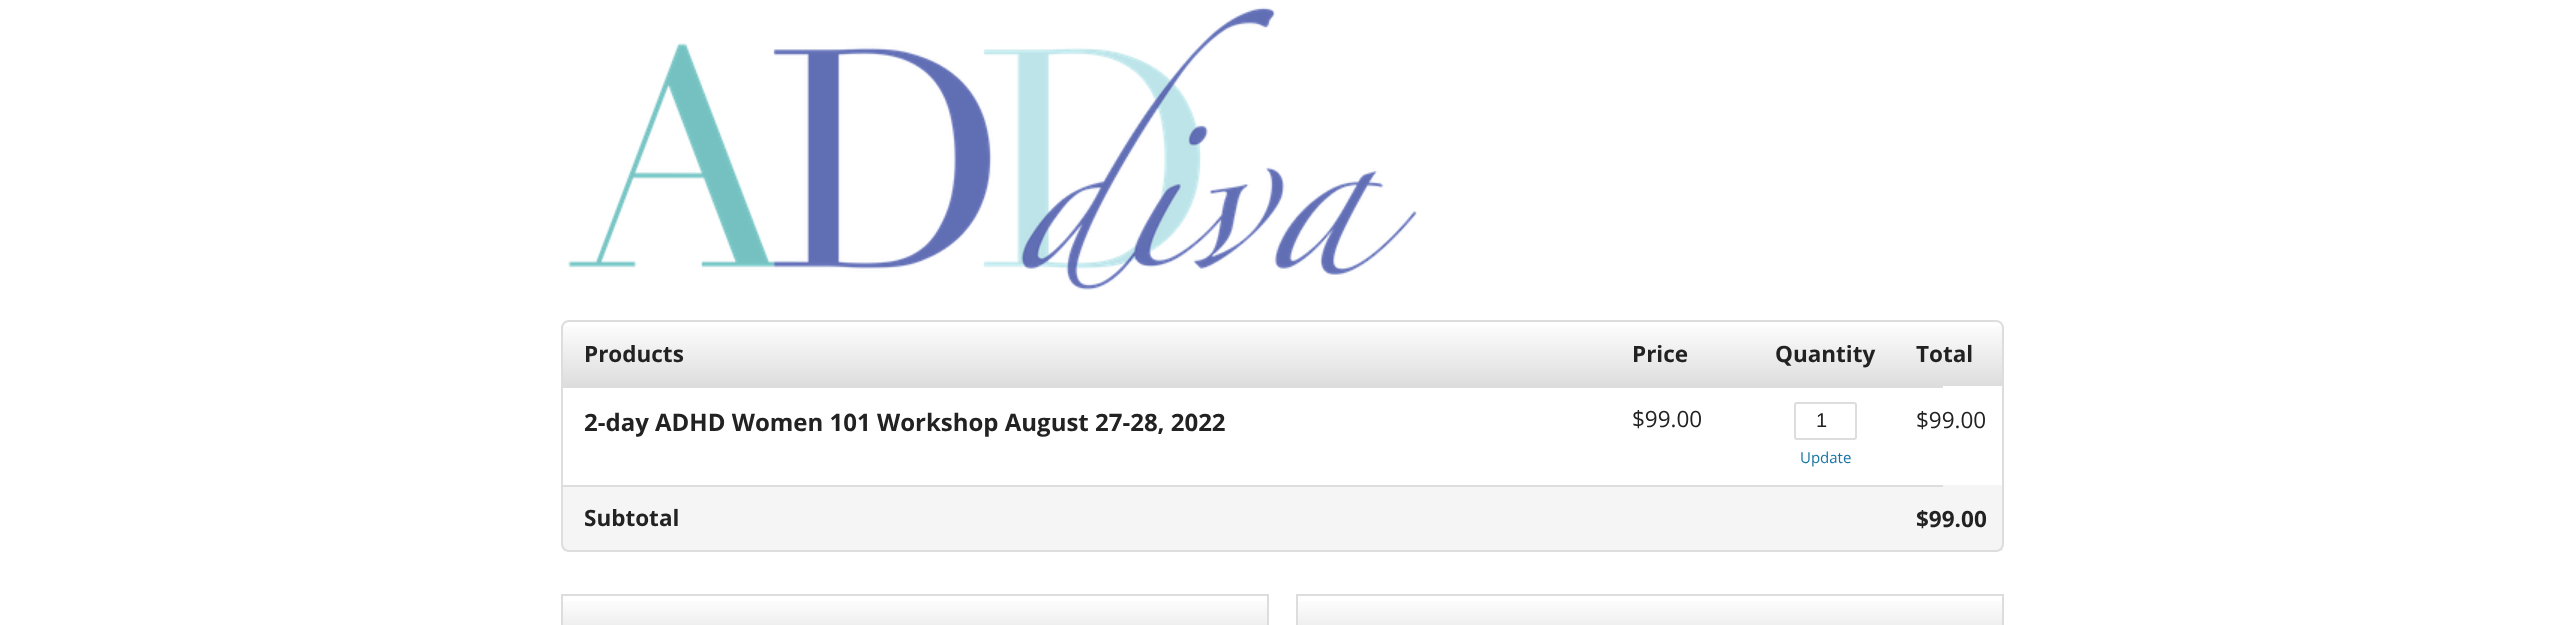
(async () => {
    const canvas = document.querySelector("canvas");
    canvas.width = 2563;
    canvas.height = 625;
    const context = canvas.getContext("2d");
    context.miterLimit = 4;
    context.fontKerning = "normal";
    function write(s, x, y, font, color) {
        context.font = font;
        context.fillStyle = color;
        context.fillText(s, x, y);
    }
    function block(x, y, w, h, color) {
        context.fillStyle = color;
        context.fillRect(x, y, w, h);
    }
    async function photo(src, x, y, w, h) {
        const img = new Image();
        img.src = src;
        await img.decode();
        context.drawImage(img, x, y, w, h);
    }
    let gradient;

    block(0, 0, 2563, 625, "rgb(255, 255, 255)");
    await photo("media/1.png", 568, 7, 849, 283);
    gradient = context.createLinearGradient(563, 321, 563, 386);
    gradient.addColorStop(0, "rgb(255, 255, 255)");
    gradient.addColorStop(1, "rgb(221, 221, 221)");
    context.fillStyle = gradient;
    context.fillRect(563, 326, 822, 60);
    gradient = context.createLinearGradient(1385, 321, 1385, 386);
    gradient.addColorStop(0, "rgb(255, 255, 255)");
    gradient.addColorStop(1, "rgb(221, 221, 221)");
    context.fillStyle = gradient;
    context.fillRect(1385, 326, 225, 60);
    gradient = context.createLinearGradient(1610, 321, 1610, 386);
    gradient.addColorStop(0, "rgb(255, 255, 255)");
    gradient.addColorStop(1, "rgb(221, 221, 221)");
    context.fillStyle = gradient;
    context.fillRect(1610, 326, 141, 60);
    gradient = context.createLinearGradient(1751, 321, 1751, 386);
    gradient.addColorStop(0, "rgb(255, 255, 255)");
    gradient.addColorStop(1, "rgb(221, 221, 221)");
    context.fillStyle = gradient;
    context.fillRect(1751, 326, 142, 60);
    gradient = context.createLinearGradient(1893, 321, 1893, 386);
    gradient.addColorStop(0, "rgb(255, 255, 255)");
    gradient.addColorStop(1, "rgb(221, 221, 221)");
    context.fillStyle = gradient;
    context.fillRect(1893, 326, 110, 60);
    context.beginPath();
    context.roundRect(1795, 403, 61, 36, 2);
    context.strokeStyle = "rgb(221, 221, 221)";
    context.lineWidth = 2;
    context.stroke();
    block(561, 386, 1382, 2, "rgb(221, 221, 221)");
    block(563, 485, 1440, 66, "rgb(245, 245, 245)");
    block(561, 485, 1382, 2, "rgb(221, 221, 221)");
    context.beginPath();
    context.roundRect(562, 321, 1441, 230, 7);
    context.stroke();
    write("Products", 584, 362, "bold 22.5px Open Sans", "rgb(34, 34, 34)");
    write("Price", 1632, 362, "bold 22.5px Open Sans", "rgb(34, 34, 34)");
    write("Quantity", 1775, 362, "bold 22.5px Open Sans", "rgb(34, 34, 34)");
    write("Total", 1916, 362, "bold 22.5px Open Sans", "rgb(34, 34, 34)");
    write("2-day ADHD Women 101 Workshop August 27-28, 2022", 584, 431, "bold 24px Open Sans", "rgb(34, 34, 34)");
    write("$99.00", 1632, 427, "22.5px Open Sans", "rgb(34, 34, 34)");
    write("1", 1816, 427, "20px Liberation Sans", "rgb(34, 34, 34)");
    write("Update", 1800, 463, "15px Open Sans", "rgb(22, 117, 162)");
    write("$99.00", 1916, 428, "22.5px Open Sans", "rgb(34, 34, 34)");
    write("Subtotal", 584, 526, "bold 22.5px Open Sans", "rgb(34, 34, 34)");
    write("$99.00", 1916, 527, "bold 22.5px Open Sans", "rgb(34, 34, 34)");
    gradient = context.createLinearGradient(563, 596, 563, 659);
    gradient.addColorStop(0, "rgb(255, 255, 255)");
    gradient.addColorStop(1, "rgb(221, 221, 221)");
    context.fillStyle = gradient;
    context.fillRect(563, 601, 704, 24);
    context.strokeRect(562, 595, 706, 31);
    gradient = context.createLinearGradient(1298, 596, 1298, 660);
    gradient.addColorStop(0, "rgb(255, 255, 255)");
    gradient.addColorStop(1, "rgb(221, 221, 221)");
    context.fillStyle = gradient;
    context.fillRect(1298, 601, 469, 24);
    gradient = context.createLinearGradient(1767, 596, 1767, 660);
    gradient.addColorStop(0, "rgb(255, 255, 255)");
    gradient.addColorStop(1, "rgb(221, 221, 221)");
    context.fillStyle = gradient;
    context.fillRect(1767, 601, 235, 24);
    context.strokeRect(1297, 595, 706, 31);
})();
